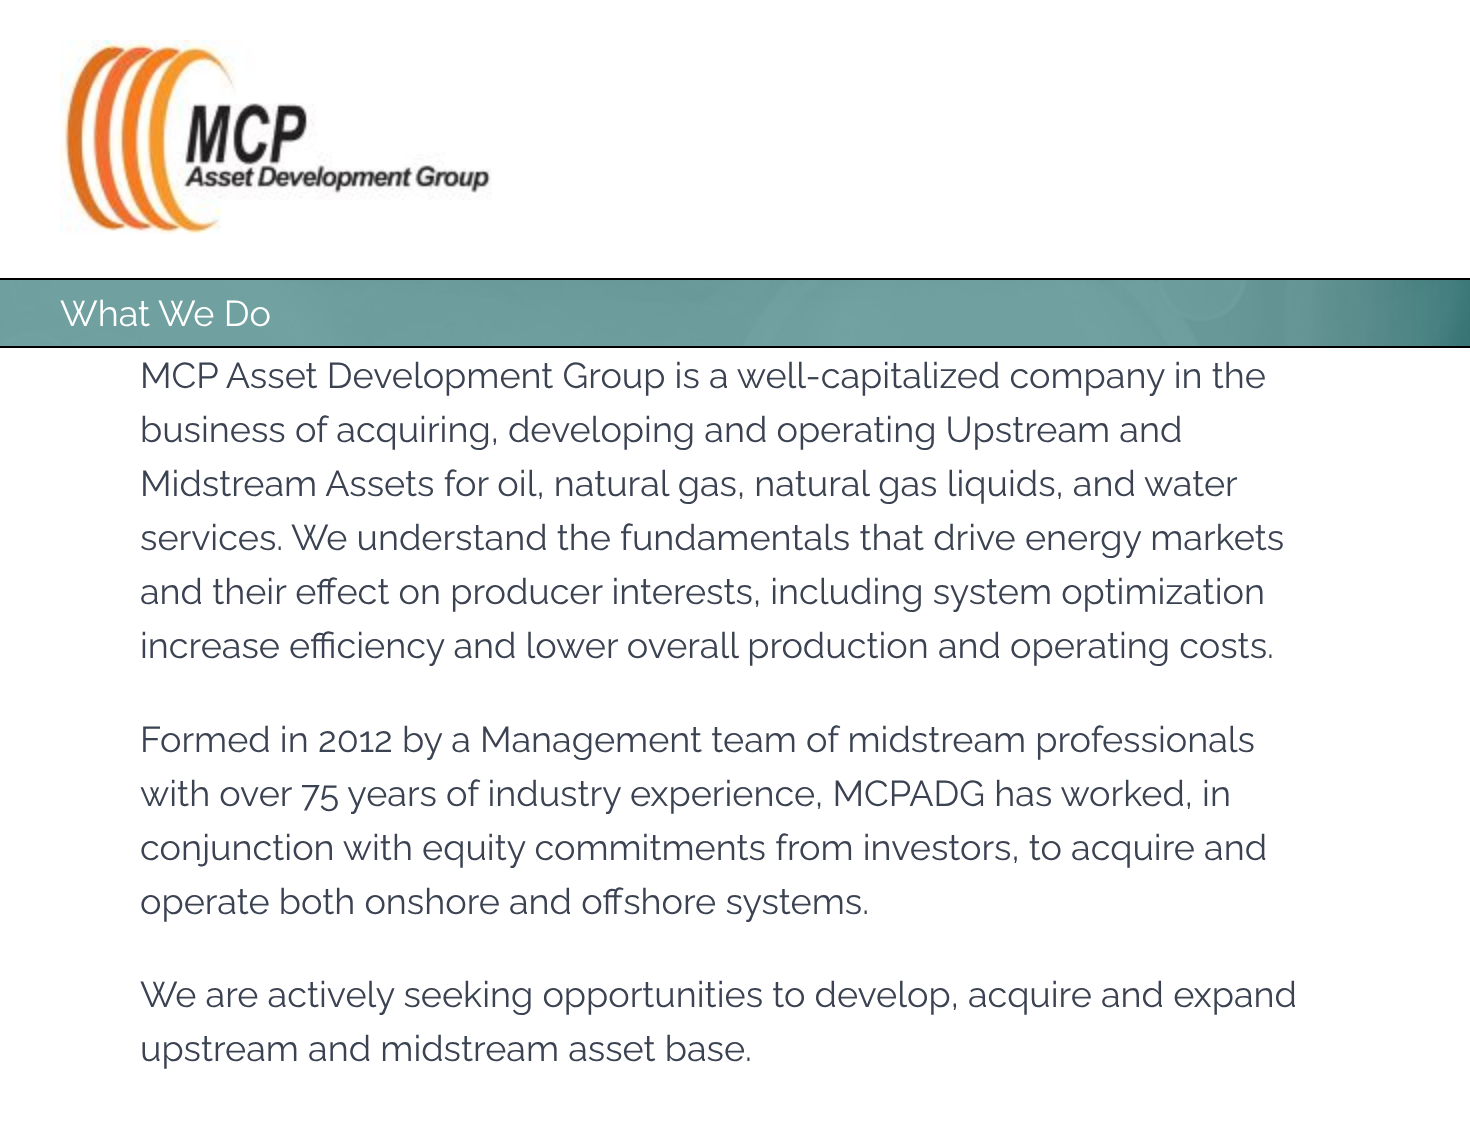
(async () => {
    const canvas = document.querySelector("canvas");
    canvas.width = 1470;
    canvas.height = 1142;
    const context = canvas.getContext("2d");
    context.miterLimit = 4;
    context.fontKerning = "normal";
    function write(s, x, y, font, color) {
        context.font = font;
        context.fillStyle = color;
        context.fillText(s, x, y);
    }
    function block(x, y, w, h, color) {
        context.fillStyle = color;
        context.fillRect(x, y, w, h);
    }
    async function photo(src, x, y, w, h) {
        const img = new Image();
        img.src = src;
        await img.decode();
        context.drawImage(img, x, y, w, h);
    }

    block(0, 0, 1470, 1142, "rgb(255, 255, 255)");
    await photo("media/1.png", 60, 40, 432, 195);
    block(0, 280, 1470, 66, "rgb(5, 91, 91)");
    await photo("media/2.png", 0, 280, 1470, 66);
    block(0, 278, 1470, 2, "rgb(0, 0, 0)");
    block(0, 346, 1470, 2, "rgb(0, 0, 0)");
    write("What We Do", 60, 326, "36px Raleway", "rgb(255, 255, 255)");
    write("MCP Asset Development Group is a well-capitalized company in the", 140, 388, "36px Raleway", "rgb(59, 66, 81)");
    write("business of acquiring, developing and operating Upstream and", 140, 442, "36px Raleway", "rgb(59, 66, 81)");
    write("Midstream Assets for oil, natural gas, natural gas liquids, and water", 140, 496, "36px Raleway", "rgb(59, 66, 81)");
    write("services. We understand the fundamentals that drive energy markets", 140, 550, "36px Raleway", "rgb(59, 66, 81)");
    write("and their effect on producer interests, including system optimization", 140, 604, "36px Raleway", "rgb(59, 66, 81)");
    write("increase efficiency and lower overall production and operating costs.", 140, 658, "36px Raleway", "rgb(59, 66, 81)");
    write("Formed in 2012 by a Management team of midstream professionals", 140, 752, "36px Raleway", "rgb(59, 66, 81)");
    write("with over 75 years of industry experience, MCPADG has worked, in", 140, 806, "36px Raleway", "rgb(59, 66, 81)");
    write("conjunction with equity commitments from investors, to acquire and", 140, 860, "36px Raleway", "rgb(59, 66, 81)");
    write("operate both onshore and offshore systems.", 140, 914, "36px Raleway", "rgb(59, 66, 81)");
    write("We are actively seeking opportunities to develop, acquire and expand", 140, 1007, "36px Raleway", "rgb(59, 66, 81)");
    write("upstream and midstream asset base.", 140, 1061, "36px Raleway", "rgb(59, 66, 81)");
})();
